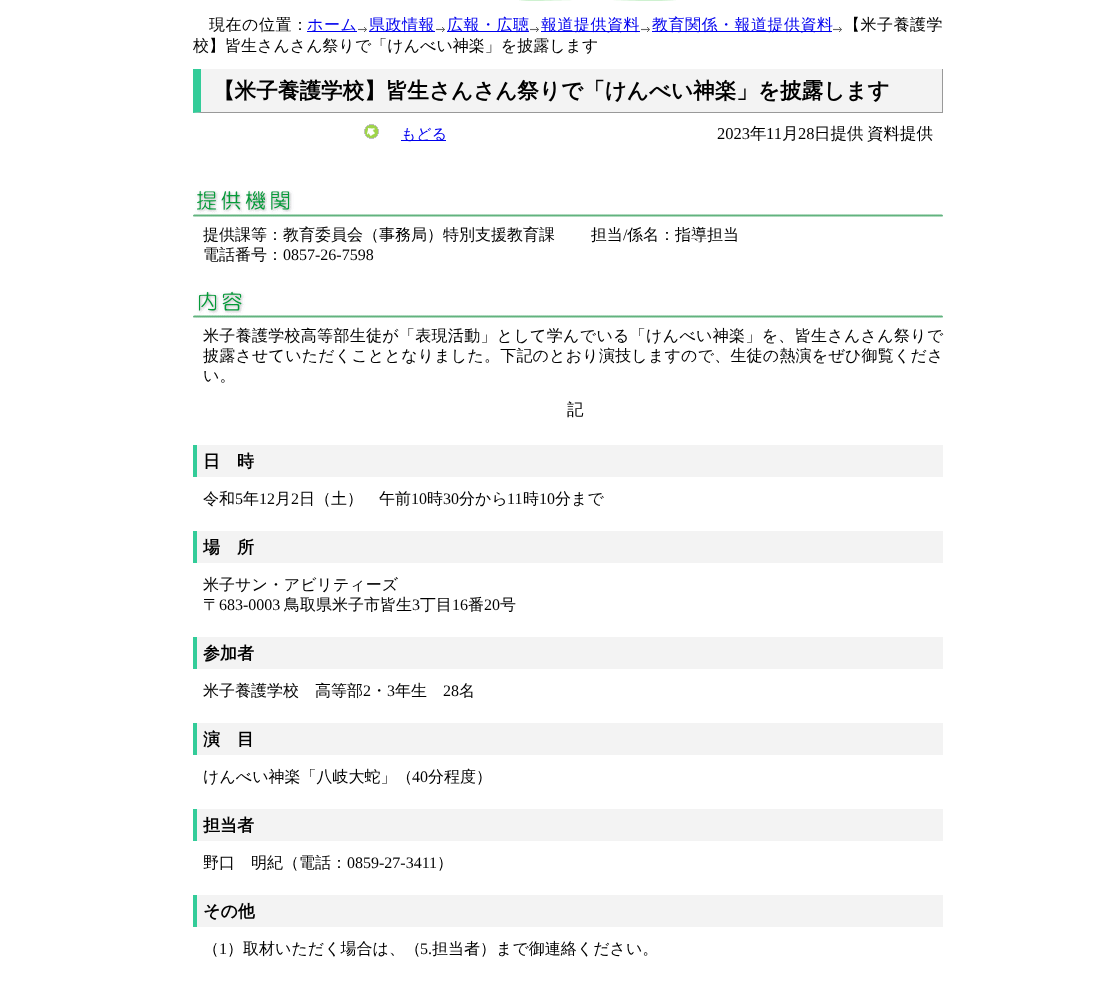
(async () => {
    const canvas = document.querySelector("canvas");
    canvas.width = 1119;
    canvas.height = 985;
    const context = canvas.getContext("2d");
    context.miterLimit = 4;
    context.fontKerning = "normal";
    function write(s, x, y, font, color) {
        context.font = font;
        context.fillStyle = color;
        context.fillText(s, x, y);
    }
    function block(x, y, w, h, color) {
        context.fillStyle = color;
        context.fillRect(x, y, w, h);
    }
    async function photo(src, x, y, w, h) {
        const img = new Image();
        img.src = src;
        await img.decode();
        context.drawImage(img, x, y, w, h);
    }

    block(0, 0, 1119, 985, "rgb(255, 255, 255)");
    await photo("media/1.png", 519, 0, 157, 1);
    context.letterSpacing = "0.5px";
    write("現在の位置：", 209, 30, "500 16px WenQuanYi Zen Hei", "rgb(0, 0, 0)");
    block(307, 31, 50, 1, "rgb(0, 0, 238)");
    write("ホーム", 307, 30, "500 16px WenQuanYi Zen Hei", "rgb(0, 0, 238)");
    await photo("media/2.png", 358, 27, 9, 5);
    block(369, 31, 66, 1, "rgb(0, 0, 238)");
    write("県政情報", 369, 30, "500 16px WenQuanYi Zen Hei", "rgb(0, 0, 238)");
    await photo("media/2.png", 436, 27, 9, 5);
    block(447, 31, 82, 1, "rgb(0, 0, 238)");
    write("広報・広聴", 447, 30, "500 16px WenQuanYi Zen Hei", "rgb(0, 0, 238)");
    await photo("media/2.png", 530, 27, 9, 5);
    block(541, 31, 99, 1, "rgb(0, 0, 238)");
    write("報道提供資料", 541, 30, "500 16px WenQuanYi Zen Hei", "rgb(0, 0, 238)");
    await photo("media/2.png", 641, 27, 9, 5);
    block(652, 31, 180, 1, "rgb(0, 0, 238)");
    write("教育関係・報道提供資料", 652, 30, "500 16px WenQuanYi Zen Hei", "rgb(0, 0, 238)");
    await photo("media/2.png", 833, 27, 9, 5);
    write("【米子養護学", 844, 30, "500 16px WenQuanYi Zen Hei", "rgb(0, 0, 0)");
    context.letterSpacing = "0px";
    write("校】皆生さんさん祭りで「けんべい神楽」を披露します", 193, 51, "500 16px WenQuanYi Zen Hei", "rgb(0, 0, 0)");
    block(193, 69, 749, 44, "rgb(243, 243, 243)");
    block(942, 69, 1, 44, "rgb(153, 153, 153)");
    context.beginPath();
    context.moveTo(943, 113);
    context.lineTo(193, 113);
    context.lineTo(201, 112);
    context.lineTo(942, 112);
    context.closePath();
    context.fill();
    context.fillStyle = "rgb(51, 204, 153)";
    context.beginPath();
    context.moveTo(193, 113);
    context.lineTo(193, 69);
    context.lineTo(201, 69);
    context.lineTo(201, 112);
    context.closePath();
    context.fill();
    write("【米子養護学校】皆生さんさん祭りで「けんべい神楽」を披露します", 213, 98, "bold 21.6px WenQuanYi Zen Hei", "rgb(0, 0, 0)");
    await photo("media/3.png", 364, 124, 15, 15);
    block(401, 140, 45, 1, "rgb(0, 0, 238)");
    write("もどる", 401, 139, "500 15px WenQuanYi Zen Hei", "rgb(0, 0, 238)");
    write("2023", 717, 139, "16.5px Liberation Serif", "rgb(0, 0, 0)");
    write("年", 750, 139, "500 16.5px WenQuanYi Zen Hei", "rgb(0, 0, 0)");
    write("11", 766, 139, "16.5px Liberation Serif", "rgb(0, 0, 0)");
    write("月", 782, 139, "500 16.5px WenQuanYi Zen Hei", "rgb(0, 0, 0)");
    write("28", 798, 139, "16.5px Liberation Serif", "rgb(0, 0, 0)");
    write("日提供", 814, 139, "500 16.5px WenQuanYi Zen Hei", "rgb(0, 0, 0)");
    write("資料提供", 867, 139, "500 16.5px WenQuanYi Zen Hei", "rgb(0, 0, 0)");
    await photo("media/4.png", 193, 190, 750, 27);
    context.wordSpacing = "-1px";
    write("提供課等：教育委員会（事務局）特別支援教育課　　 担当", 203, 240, "500 16px WenQuanYi Zen Hei", "rgb(0, 0, 0)");
    context.wordSpacing = "0px";
    write("/", 623, 240, "16px Liberation Serif", "rgb(0, 0, 0)");
    write("係名：指導担当", 627, 240, "500 16px WenQuanYi Zen Hei", "rgb(0, 0, 0)");
    write("電話番号：", 203, 260, "500 16px WenQuanYi Zen Hei", "rgb(0, 0, 0)");
    write("0857-26-7598", 283, 260, "16px Liberation Serif", "rgb(0, 0, 0)");
    await photo("media/5.png", 193, 291, 750, 27);
    context.letterSpacing = "0.3px";
    write("米子養護学校高等部生徒が「表現活動」として学んでいる「けんべい神楽」を、皆生さんさん祭りで", 203, 341, "500 16px WenQuanYi Zen Hei", "rgb(0, 0, 0)");
    context.letterSpacing = "0.2px";
    write("披露させていただくこととなりました。下記のとおり演技しますので、生徒の熱演をぜひ御覧くださ", 203, 361, "500 16px WenQuanYi Zen Hei", "rgb(0, 0, 0)");
    context.letterSpacing = "0px";
    write("い。", 203, 381, "500 16px WenQuanYi Zen Hei", "rgb(0, 0, 0)");
    write("記", 567, 415, "500 16.5px WenQuanYi Zen Hei", "rgb(0, 0, 0)");
    block(197, 445, 746, 32, "rgb(243, 243, 243)");
    block(193, 445, 4, 32, "rgb(51, 204, 153)");
    write("日　時", 203, 467, "bold 17px WenQuanYi Zen Hei", "rgb(0, 0, 0)");
    write("令和", 203, 504, "500 16px WenQuanYi Zen Hei", "rgb(0, 0, 0)");
    write("5", 235, 504, "16px Liberation Serif", "rgb(0, 0, 0)");
    write("年", 243, 504, "500 16px WenQuanYi Zen Hei", "rgb(0, 0, 0)");
    write("12", 259, 504, "16px Liberation Serif", "rgb(0, 0, 0)");
    write("月", 275, 504, "500 16px WenQuanYi Zen Hei", "rgb(0, 0, 0)");
    write("2", 291, 504, "16px Liberation Serif", "rgb(0, 0, 0)");
    write("日（土）　午前", 299, 504, "500 16px WenQuanYi Zen Hei", "rgb(0, 0, 0)");
    write("10", 411, 504, "16px Liberation Serif", "rgb(0, 0, 0)");
    write("時", 427, 504, "500 16px WenQuanYi Zen Hei", "rgb(0, 0, 0)");
    write("30", 443, 504, "16px Liberation Serif", "rgb(0, 0, 0)");
    write("分から", 459, 504, "500 16px WenQuanYi Zen Hei", "rgb(0, 0, 0)");
    write("11", 507, 504, "16px Liberation Serif", "rgb(0, 0, 0)");
    write("時", 523, 504, "500 16px WenQuanYi Zen Hei", "rgb(0, 0, 0)");
    write("10", 539, 504, "16px Liberation Serif", "rgb(0, 0, 0)");
    write("分まで", 555, 504, "500 16px WenQuanYi Zen Hei", "rgb(0, 0, 0)");
    block(197, 531, 746, 32, "rgb(243, 243, 243)");
    block(193, 531, 4, 32, "rgb(51, 204, 153)");
    write("場　所", 203, 553, "bold 17px WenQuanYi Zen Hei", "rgb(0, 0, 0)");
    write("米子サン・アビリティーズ", 203, 590, "500 16px WenQuanYi Zen Hei", "rgb(0, 0, 0)");
    write("〒", 203, 610, "500 16px WenQuanYi Zen Hei", "rgb(0, 0, 0)");
    write("683-0003", 219, 610, "16px Liberation Serif", "rgb(0, 0, 0)");
    write("鳥取県米子市皆生", 284, 610, "500 16px WenQuanYi Zen Hei", "rgb(0, 0, 0)");
    write("3", 412, 610, "16px Liberation Serif", "rgb(0, 0, 0)");
    write("丁目", 420, 610, "500 16px WenQuanYi Zen Hei", "rgb(0, 0, 0)");
    write("16", 452, 610, "16px Liberation Serif", "rgb(0, 0, 0)");
    write("番", 468, 610, "500 16px WenQuanYi Zen Hei", "rgb(0, 0, 0)");
    write("20", 484, 610, "16px Liberation Serif", "rgb(0, 0, 0)");
    write("号", 500, 610, "500 16px WenQuanYi Zen Hei", "rgb(0, 0, 0)");
    block(197, 637, 746, 32, "rgb(243, 243, 243)");
    block(193, 637, 4, 32, "rgb(51, 204, 153)");
    write("参加者", 203, 659, "bold 17px WenQuanYi Zen Hei", "rgb(0, 0, 0)");
    write("米子養護学校　高等部", 203, 696, "500 16px WenQuanYi Zen Hei", "rgb(0, 0, 0)");
    write("2", 363, 696, "16px Liberation Serif", "rgb(0, 0, 0)");
    write("・", 371, 696, "500 16px WenQuanYi Zen Hei", "rgb(0, 0, 0)");
    write("3", 387, 696, "16px Liberation Serif", "rgb(0, 0, 0)");
    write("年生", 395, 696, "500 16px WenQuanYi Zen Hei", "rgb(0, 0, 0)");
    write("28", 443, 696, "16px Liberation Serif", "rgb(0, 0, 0)");
    write("名", 459, 696, "500 16px WenQuanYi Zen Hei", "rgb(0, 0, 0)");
    block(197, 723, 746, 32, "rgb(243, 243, 243)");
    block(193, 723, 4, 32, "rgb(51, 204, 153)");
    write("演　目", 203, 745, "bold 17px WenQuanYi Zen Hei", "rgb(0, 0, 0)");
    write("けんべい神楽「八岐大蛇」（", 203, 782, "500 16px WenQuanYi Zen Hei", "rgb(0, 0, 0)");
    write("40", 412, 782, "16px Liberation Serif", "rgb(0, 0, 0)");
    write("分程度）", 428, 782, "500 16px WenQuanYi Zen Hei", "rgb(0, 0, 0)");
    block(197, 809, 746, 32, "rgb(243, 243, 243)");
    block(193, 809, 4, 32, "rgb(51, 204, 153)");
    write("担当者", 203, 831, "bold 17px WenQuanYi Zen Hei", "rgb(0, 0, 0)");
    write("野口　明紀（電話：", 203, 868, "500 16px WenQuanYi Zen Hei", "rgb(0, 0, 0)");
    write("0859-27-3411", 347, 868, "16px Liberation Serif", "rgb(0, 0, 0)");
    write("）", 437, 868, "500 16px WenQuanYi Zen Hei", "rgb(0, 0, 0)");
    block(197, 895, 746, 32, "rgb(243, 243, 243)");
    block(193, 895, 4, 32, "rgb(51, 204, 153)");
    write("その他", 203, 917, "bold 17px WenQuanYi Zen Hei", "rgb(0, 0, 0)");
    write("（", 203, 954, "500 16px WenQuanYi Zen Hei", "rgb(0, 0, 0)");
    write("1", 219, 954, "16px Liberation Serif", "rgb(0, 0, 0)");
    write("）取材いただく場合は、（", 227, 954, "500 16px WenQuanYi Zen Hei", "rgb(0, 0, 0)");
    write("5.", 420, 954, "16px Liberation Serif", "rgb(0, 0, 0)");
    write("担当者）まで御連絡ください。", 432, 954, "500 16px WenQuanYi Zen Hei", "rgb(0, 0, 0)");
})();
